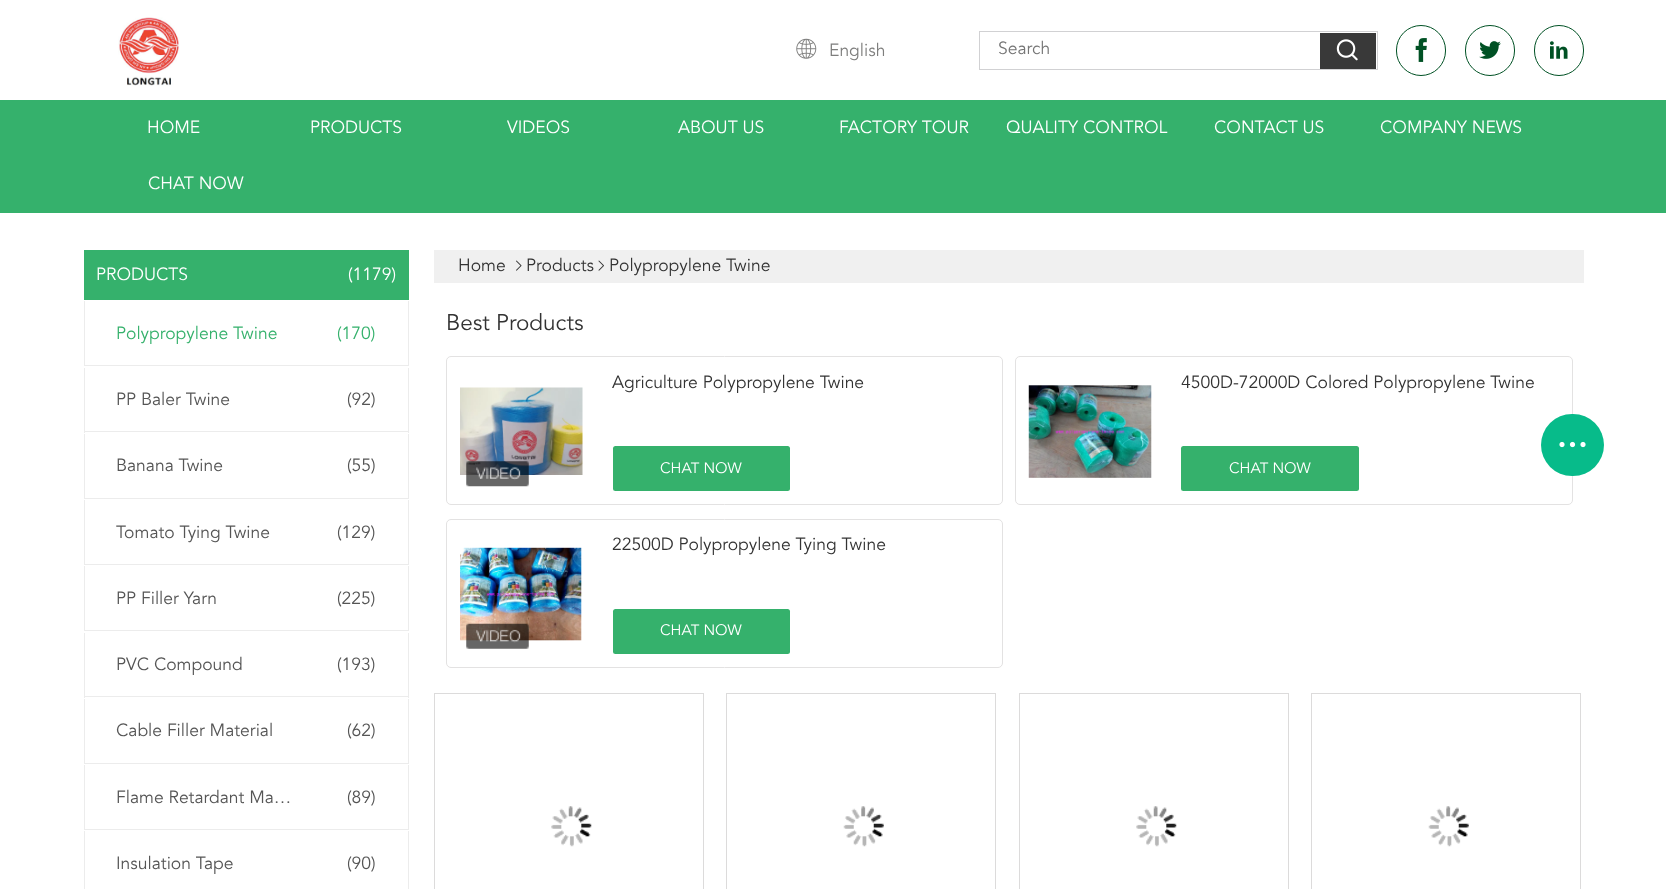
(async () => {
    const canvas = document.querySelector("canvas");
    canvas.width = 1666;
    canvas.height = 889;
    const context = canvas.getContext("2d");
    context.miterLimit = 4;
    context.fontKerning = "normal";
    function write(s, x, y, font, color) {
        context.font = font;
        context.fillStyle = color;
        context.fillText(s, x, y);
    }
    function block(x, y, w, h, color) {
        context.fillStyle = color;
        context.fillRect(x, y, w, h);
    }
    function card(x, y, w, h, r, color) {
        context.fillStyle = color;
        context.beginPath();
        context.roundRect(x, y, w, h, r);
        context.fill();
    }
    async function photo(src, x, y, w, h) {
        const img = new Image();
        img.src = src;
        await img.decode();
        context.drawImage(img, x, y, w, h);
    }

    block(0, 0, 1666, 889, "rgb(255, 255, 255)");
    await photo("media/1.png", 118, 17, 62, 69);
    await photo("media/2.png", 796, 38, 21, 21);
    write("English", 829, 56, "17.5px Avenir", "rgb(126, 126, 125)");
    context.strokeStyle = "rgb(209, 209, 211)";
    context.strokeRect(979.5, 31.5, 398, 38);
    write("Search", 998, 54, "17.5px Avenir", "rgb(117, 117, 117)");
    block(1320, 33, 56, 36, "rgb(57, 57, 57)");
    await photo("media/3.png", 1336, 39, 22, 22);
    context.beginPath();
    context.roundRect(1396.5, 25.5, 49, 50, 24.5);
    context.strokeStyle = "rgb(0, 81, 36)";
    context.stroke();
    await photo("media/4.png", 1415, 38, 12, 24);
    context.beginPath();
    context.roundRect(1465.5, 25.5, 49, 50, 24.5);
    context.stroke();
    await photo("media/5.png", 1479, 41, 22, 18);
    context.beginPath();
    context.roundRect(1534.5, 25.5, 49, 50, 24.5);
    context.stroke();
    await photo("media/6.png", 1550, 41, 18, 18);
    block(0, 100, 1666, 113, "rgb(53, 177, 108)");
    write("HOME", 147, 133, "17.5px Avenir", "rgb(255, 255, 255)");
    write("PRODUCTS", 310, 133, "17.5px Avenir", "rgb(255, 255, 255)");
    write("VIDEOS", 507, 133, "17.5px Avenir", "rgb(255, 255, 255)");
    write("ABOUT US", 678, 133, "17.5px Avenir", "rgb(255, 255, 255)");
    write("FACTORY TOUR", 839, 133, "17.5px Avenir", "rgb(255, 255, 255)");
    write("QUALITY CONTROL", 1006, 133, "17.5px Avenir", "rgb(255, 255, 255)");
    write("CONTACT US", 1214, 133, "17.5px Avenir", "rgb(255, 255, 255)");
    write("COMPANY NEWS", 1380, 133, "17.5px Avenir", "rgb(255, 255, 255)");
    write("CHAT NOW", 148, 189, "17.5px Avenir", "rgb(255, 255, 255)");
    block(84, 250, 325, 50, "rgb(53, 177, 108)");
    write("PRODUCTS", 96, 280, "17.5px Avenir", "rgb(255, 255, 255)");
    write("(1179)", 348, 280, "17.5px Avenir", "rgb(255, 255, 255)");
    block(408, 301, 1, 65, "rgb(236, 236, 236)");
    block(84, 365, 325, 1, "rgb(236, 236, 236)");
    block(84, 301, 1, 65, "rgb(236, 236, 236)");
    write("Polypropylene Twine", 116, 339, "17.5px Avenir", "rgb(53, 177, 108)");
    write("(170)", 337, 339, "17.5px Avenir", "rgb(53, 177, 108)");
    block(408, 368, 1, 65, "rgb(236, 236, 236)");
    block(84, 431, 325, 1, "rgb(236, 236, 236)");
    block(84, 368, 1, 65, "rgb(236, 236, 236)");
    write("PP Baler Twine", 116, 405, "17.5px Avenir", "rgb(85, 85, 85)");
    write("(92)", 347, 405, "17.5px Avenir", "rgb(85, 85, 85)");
    block(408, 434, 1, 65, "rgb(236, 236, 236)");
    block(84, 498, 325, 1, "rgb(236, 236, 236)");
    block(84, 434, 1, 65, "rgb(236, 236, 236)");
    write("Banana Twine", 116, 471, "17.5px Avenir", "rgb(85, 85, 85)");
    write("(55)", 347, 471, "17.5px Avenir", "rgb(85, 85, 85)");
    block(408, 500, 1, 65, "rgb(236, 236, 236)");
    block(84, 564, 325, 1, "rgb(236, 236, 236)");
    block(84, 500, 1, 65, "rgb(236, 236, 236)");
    write("Tomato Tying Twine", 116, 538, "17.5px Avenir", "rgb(85, 85, 85)");
    write("(129)", 337, 538, "17.5px Avenir", "rgb(85, 85, 85)");
    block(408, 566, 1, 65, "rgb(236, 236, 236)");
    block(84, 630, 325, 1, "rgb(236, 236, 236)");
    block(84, 566, 1, 65, "rgb(236, 236, 236)");
    write("PP Filler Yarn", 116, 604, "17.5px Avenir", "rgb(85, 85, 85)");
    write("(225)", 337, 604, "17.5px Avenir", "rgb(85, 85, 85)");
    block(408, 633, 1, 65, "rgb(236, 236, 236)");
    block(84, 696, 325, 1, "rgb(236, 236, 236)");
    block(84, 633, 1, 65, "rgb(236, 236, 236)");
    write("PVC Compound", 116, 670, "17.5px Avenir", "rgb(85, 85, 85)");
    write("(193)", 337, 670, "17.5px Avenir", "rgb(85, 85, 85)");
    block(408, 699, 1, 65, "rgb(236, 236, 236)");
    block(84, 763, 325, 1, "rgb(236, 236, 236)");
    block(84, 699, 1, 65, "rgb(236, 236, 236)");
    write("Cable Filler Material", 116, 736, "17.5px Avenir", "rgb(85, 85, 85)");
    write("(62)", 347, 736, "17.5px Avenir", "rgb(85, 85, 85)");
    block(408, 765, 1, 65, "rgb(236, 236, 236)");
    block(84, 829, 325, 1, "rgb(236, 236, 236)");
    block(84, 765, 1, 65, "rgb(236, 236, 236)");
    write("Flame Retardant Ma…", 116, 803, "17.5px Avenir", "rgb(85, 85, 85)");
    write("(89)", 347, 803, "17.5px Avenir", "rgb(85, 85, 85)");
    block(408, 831, 1, 58, "rgb(236, 236, 236)");
    block(84, 831, 1, 58, "rgb(236, 236, 236)");
    write("Insulation Tape", 116, 869, "17.5px Avenir", "rgb(85, 85, 85)");
    write("(90)", 347, 869, "17.5px Avenir", "rgb(85, 85, 85)");
    block(434, 250, 1150, 33, "rgb(240, 240, 240)");
    write("Home", 458, 271, "17.5px Avenir", "rgb(51, 51, 51)");
    await photo("media/7.png", 516, 260, 6, 11);
    write("Products", 526, 271, "17.5px Avenir", "rgb(51, 51, 51)");
    await photo("media/8.png", 598, 260, 6, 11);
    write("Polypropylene Twine", 609, 271, "17.5px Avenir", "rgb(51, 51, 51)");
    write("Best Products", 446, 330, "22.5px Avenir", "rgb(51, 51, 51)");
    context.beginPath();
    context.roundRect(446.5, 356.5, 556, 148, 4.5);
    context.strokeStyle = "rgb(227, 226, 226)";
    context.stroke();
    await photo("media/9.png", 460, 387, 123, 88);
    await photo("media/10.png", 466, 461, 63, 26);
    write("Agriculture Polypropylene Twine", 612, 388, "17.5px Avenir", "rgb(51, 51, 51)");
    card(613, 446, 177, 45, 2.5, "rgb(53, 177, 108)");
    write("CHAT NOW", 660, 473, "15px Avenir", "rgb(255, 255, 255)");
    context.beginPath();
    context.roundRect(1015.5, 356.5, 557, 148, 4.5);
    context.stroke();
    await photo("media/11.png", 1028, 385, 124, 93);
    write("4500D-72000D Colored Polypropylene Twine", 1181, 388, "17.5px Avenir", "rgb(51, 51, 51)");
    card(1181, 446, 178, 45, 2.5, "rgb(53, 177, 108)");
    write("CHAT NOW", 1229, 473, "15px Avenir", "rgb(255, 255, 255)");
    context.beginPath();
    context.roundRect(446.5, 519.5, 556, 148, 4.5);
    context.stroke();
    await photo("media/12.png", 460, 547, 122, 94);
    await photo("media/13.png", 466, 623, 63, 26);
    write("22500D Polypropylene Tying Twine", 612, 550, "17.5px Avenir", "rgb(51, 51, 51)");
    card(613, 609, 177, 45, 2.5, "rgb(53, 177, 108)");
    write("CHAT NOW", 660, 635, "15px Avenir", "rgb(255, 255, 255)");
    context.strokeStyle = "rgb(220, 219, 219)";
    context.strokeRect(434.5, 693.5, 269, 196);
    await photo("media/14.png", 551, 806, 41, 41);
    context.strokeRect(726.5, 693.5, 269, 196);
    await photo("media/15.png", 843, 806, 41, 41);
    context.strokeRect(1019.5, 693.5, 269, 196);
    await photo("media/14.png", 1136, 806, 41, 41);
    context.strokeRect(1311.5, 693.5, 269, 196);
    await photo("media/15.png", 1428, 806, 41, 41);
    card(1541, 414, 63, 62, 31, "rgb(7, 187, 138)");
    await photo("media/16.png", 1559, 441, 27, 7);
})();
